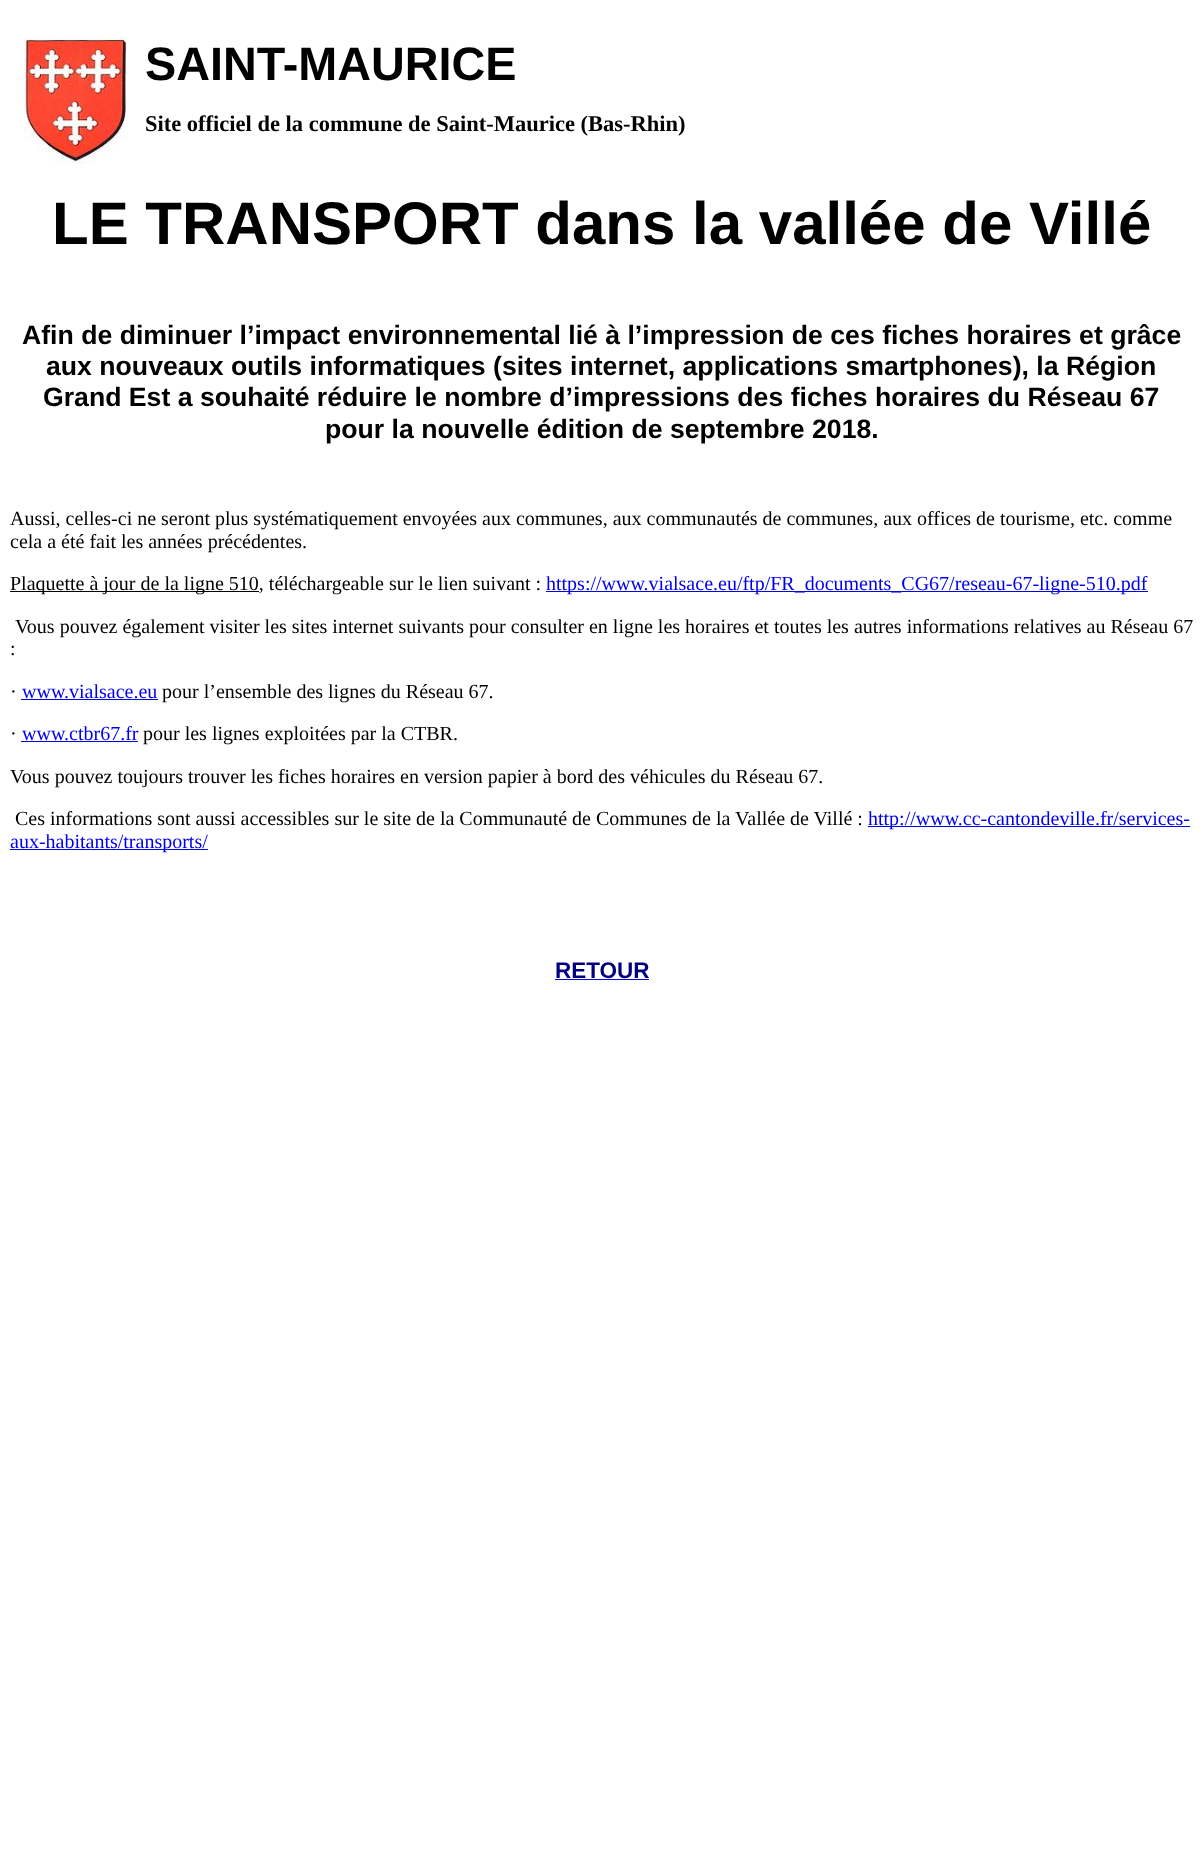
(async () => {
    const canvas = document.querySelector("canvas");
    canvas.width = 1203;
    canvas.height = 1854;
    const context = canvas.getContext("2d");
    context.miterLimit = 4;
    context.fontKerning = "normal";
    function write(s, x, y, font, color) {
        context.font = font;
        context.fillStyle = color;
        context.fillText(s, x, y);
    }
    function block(x, y, w, h, color) {
        context.fillStyle = color;
        context.fillRect(x, y, w, h);
    }
    async function photo(src, x, y, w, h) {
        const img = new Image();
        img.src = src;
        await img.decode();
        context.drawImage(img, x, y, w, h);
    }

    block(0, 0, 1203, 1854, "rgb(255, 255, 255)");
    await photo("media/1.png", 23, 37, 105, 127);
    write("SAINT-MAURICE", 145, 80, "bold 46.75px Liberation Sans", "rgb(0, 0, 0)");
    write("Site officiel de la commune de Saint-Maurice (Bas-Rhin)", 145, 131, "bold 22.5px Liberation Serif", "rgb(0, 0, 0)");
    write("LE TRANSPORT dans la vallée de Villé", 52, 244, "bold 60px Liberation Sans", "rgb(0, 0, 0)");
    write("Afin de diminuer l’impact environnemental lié à l’impression de ces fiches horaires et grâce", 22, 344, "bold 26.65px Liberation Sans", "rgb(0, 0, 0)");
    write("aux nouveaux outils informatiques (sites internet, applications smartphones), la Région", 46, 375, "bold 26.65px Liberation Sans", "rgb(0, 0, 0)");
    write("Grand Est a souhaité réduire le nombre d’impressions des fiches horaires du Réseau 67", 43, 406, "bold 26.65px Liberation Sans", "rgb(0, 0, 0)");
    write("pour la nouvelle édition de septembre 2018.", 325, 438, "bold 26.65px Liberation Sans", "rgb(0, 0, 0)");
    write("Aussi, celles-ci ne seront plus systématiquement envoyées aux communes, aux communautés de communes, aux offices de tourisme, etc. comme", 10, 525, "20px Liberation Serif", "rgb(0, 0, 0)");
    write("cela a été fait les années précédentes.", 10, 548, "20px Liberation Serif", "rgb(0, 0, 0)");
    block(10, 591, 249, 1, "rgb(0, 0, 0)");
    write("Plaquette à jour de la ligne 510, téléchargeable sur le lien suivant :", 10, 590, "20px Liberation Serif", "rgb(0, 0, 0)");
    block(546, 591, 602, 1, "rgb(0, 0, 238)");
    write("https://www.vialsace.eu/ftp/FR_documents_CG67/reseau-67-ligne-510.pdf", 546, 590, "20px Liberation Serif", "rgb(0, 0, 238)");
    write("Vous pouvez également visiter les sites internet suivants pour consulter en ligne les horaires et toutes les autres informations relatives au Réseau 67", 15, 633, "20px Liberation Serif", "rgb(0, 0, 0)");
    write(":", 10, 655, "20px Liberation Serif", "rgb(0, 0, 0)");
    write("·", 10, 698, "20px Liberation Serif", "rgb(0, 0, 0)");
    write("www.vialsace.eu", 22, 698, "20px Liberation Serif", "rgb(0, 0, 238)");
    block(21, 699, 137, 1, "rgb(0, 0, 238)");
    write("pour l’ensemble des lignes du Réseau 67.", 162, 698, "20px Liberation Serif", "rgb(0, 0, 0)");
    write("·", 10, 740, "20px Liberation Serif", "rgb(0, 0, 0)");
    write("www.ctbr67.fr", 22, 740, "20px Liberation Serif", "rgb(0, 0, 238)");
    block(21, 741, 117, 1, "rgb(0, 0, 238)");
    write("pour les lignes exploitées par la CTBR.", 143, 740, "20px Liberation Serif", "rgb(0, 0, 0)");
    write("Vous pouvez toujours trouver les fiches horaires en version papier à bord des véhicules du Réseau 67.", 10, 783, "20px Liberation Serif", "rgb(0, 0, 0)");
    write("Ces informations sont aussi accessibles sur le site de la Communauté de Communes de la Vallée de Villé :", 15, 825, "20px Liberation Serif", "rgb(0, 0, 0)");
    block(868, 826, 322, 1, "rgb(0, 0, 238)");
    write("http://www.cc-cantondeville.fr/services-", 868, 825, "20px Liberation Serif", "rgb(0, 0, 238)");
    block(10, 849, 198, 1, "rgb(0, 0, 238)");
    write("aux-habitants/transports/", 10, 848, "20px Liberation Serif", "rgb(0, 0, 238)");
    write("RETOUR", 555, 978, "bold 22.5px Liberation Sans", "rgb(0, 0, 128)");
    block(555, 979, 94, 1, "rgb(0, 0, 238)");
})();
